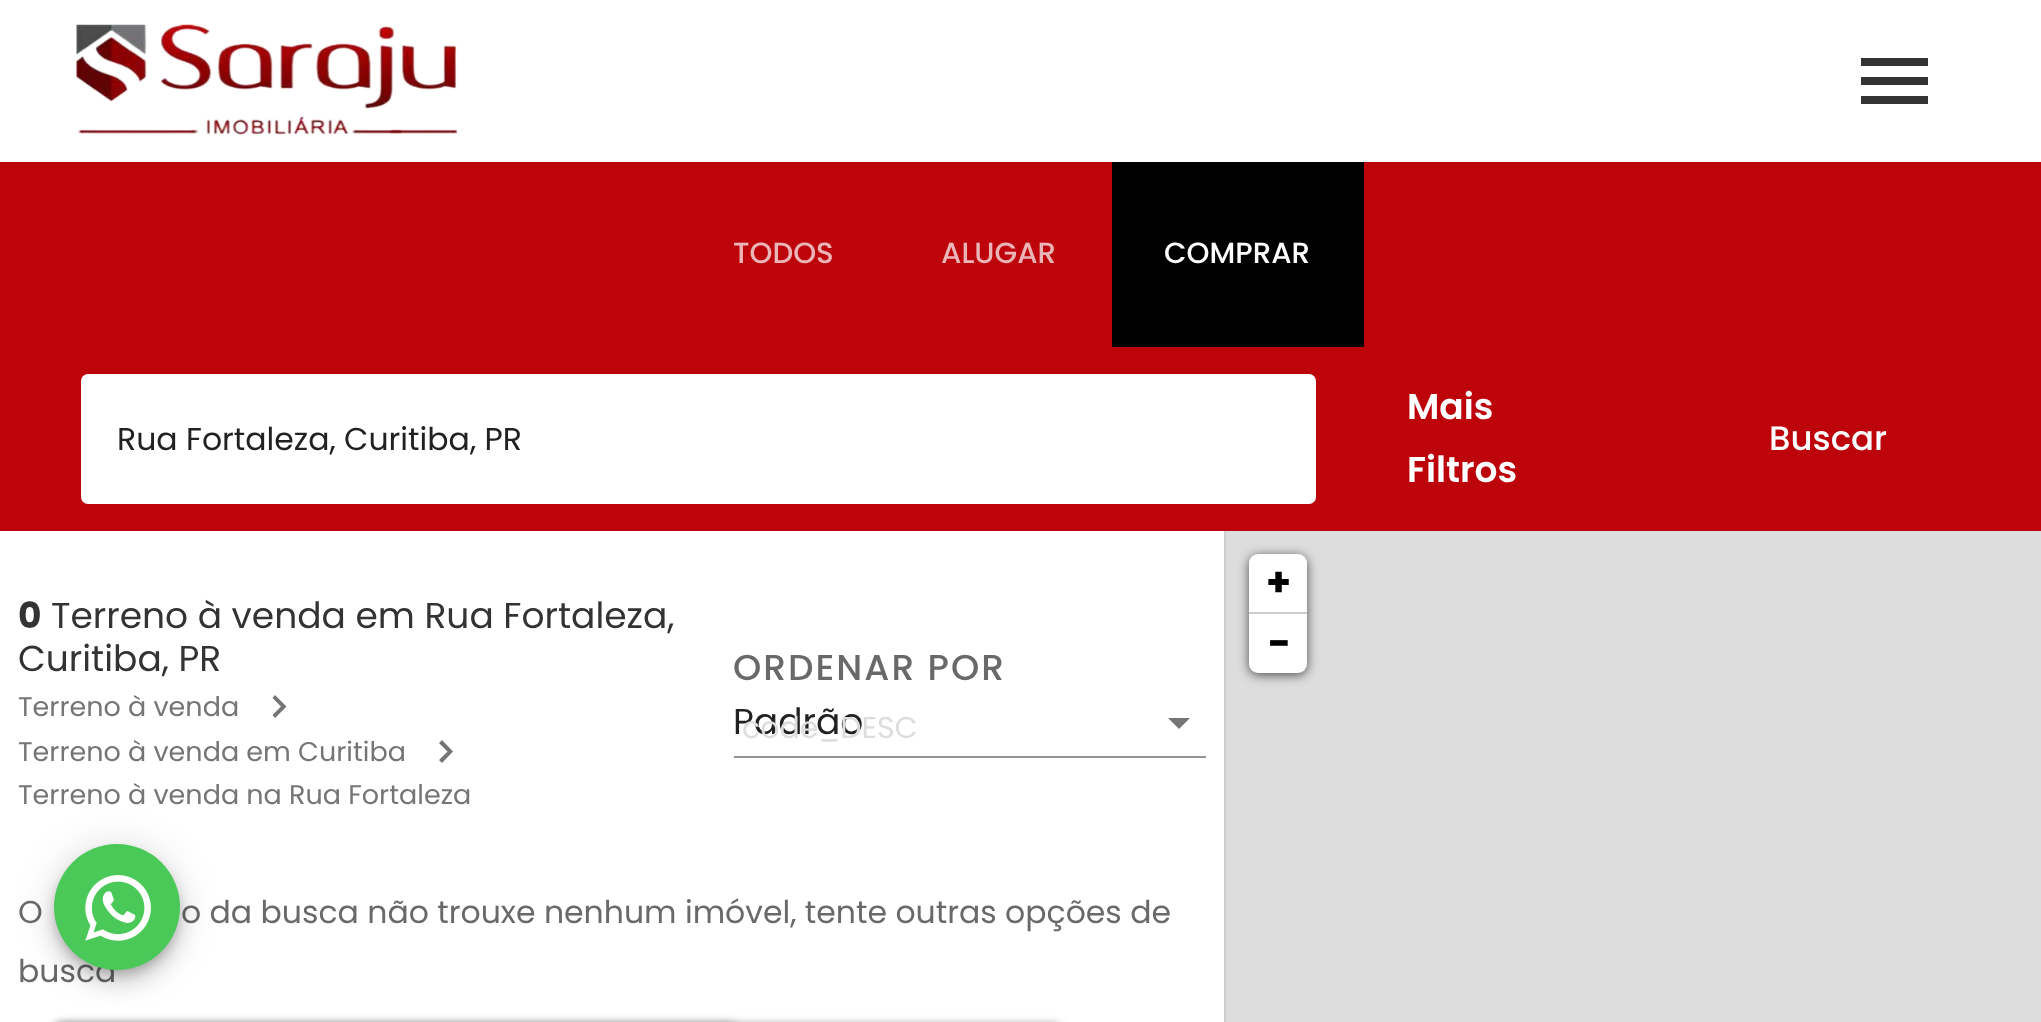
(async () => {
    const canvas = document.querySelector("canvas");
    canvas.width = 2041;
    canvas.height = 1022;
    const context = canvas.getContext("2d");
    context.miterLimit = 4;
    context.fontKerning = "normal";
    function write(s, x, y, font, color) {
        context.font = font;
        context.fillStyle = color;
        context.fillText(s, x, y);
    }
    function block(x, y, w, h, color) {
        context.fillStyle = color;
        context.fillRect(x, y, w, h);
    }
    function card(x, y, w, h, r, color) {
        context.fillStyle = color;
        context.beginPath();
        context.roundRect(x, y, w, h, r);
        context.fill();
    }
    async function photo(src, x, y, w, h) {
        const img = new Image();
        img.src = src;
        await img.decode();
        context.drawImage(img, x, y, w, h);
    }

    block(0, 0, 2041, 1022, "rgb(255, 255, 255)");
    await photo("media/1.png", 76, 24, 381, 111);
    context.fillStyle = "rgb(51, 51, 51)";
    context.beginPath();
    context.moveTo(1861, 104);
    context.lineTo(1928, 104);
    context.lineTo(1928, 96);
    context.lineTo(1861, 96);
    context.closePath();
    context.moveTo(1861, 85);
    context.lineTo(1928, 85);
    context.lineTo(1928, 77);
    context.lineTo(1861, 77);
    context.closePath();
    context.moveTo(1861, 58);
    context.lineTo(1861, 66);
    context.lineTo(1928, 66);
    context.lineTo(1928, 58);
    context.closePath();
    context.fill();
    block(0, 162, 2041, 369, "rgb(188, 4, 10)");
    write("TODOS", 733, 263, "500 29.25px Poppins", "rgb(235, 180, 182)");
    write("ALUGAR", 941, 263, "500 29.25px Poppins", "rgb(235, 180, 182)");
    block(1112, 162, 252, 185, "rgb(0, 0, 0)");
    write("COMPRAR", 1164, 263, "500 29.25px Poppins", "rgb(255, 255, 255)");
    card(81, 374, 1235, 130, 7, "rgb(255, 255, 255)");
    write("Rua Fortaleza, Curitiba, PR", 117, 450, "31.5px Poppins", "rgb(33, 33, 33)");
    write("Mais", 1407, 419, "600 36px Poppins", "rgb(255, 255, 255)");
    write("Filtros", 1407, 482, "600 36px Poppins", "rgb(255, 255, 255)");
    write("Buscar", 1769, 450, "500 34px Poppins", "rgb(255, 255, 255)");
    block(1224, 531, 2, 491, "rgb(206, 206, 206)");
    write("0", 18, 628, "bold 36px Poppins", "rgb(51, 51, 51)");
    write("Terreno à venda em Rua Fortaleza,", 51, 628, "36px Poppins", "rgb(51, 51, 51)");
    write("Curitiba, PR", 18, 671, "36px Poppins", "rgb(51, 51, 51)");
    write("Terreno à venda", 18, 716, "27px Poppins", "rgb(117, 117, 117)");
    context.beginPath();
    context.moveTo(275, 695);
    context.lineTo(272.5, 698);
    context.lineTo(281, 706.5);
    context.lineTo(272.5, 715);
    context.lineTo(275, 718);
    context.lineTo(286.5, 706.5);
    context.closePath();
    context.fill();
    write("Terreno à venda em Curitiba", 18, 761, "27px Poppins", "rgb(117, 117, 117)");
    context.beginPath();
    context.moveTo(442, 740);
    context.lineTo(439, 743);
    context.lineTo(447.5, 751.5);
    context.lineTo(439, 760);
    context.lineTo(442, 763);
    context.lineTo(453, 751.5);
    context.closePath();
    context.fill();
    write("Terreno à venda na Rua Fortaleza", 18, 804, "27px Poppins", "rgb(117, 117, 117)");
    context.letterSpacing = "2px";
    write("ORDENAR POR", 733, 680, "500 36px Poppins", "rgb(105, 105, 105)");
    context.letterSpacing = "0px";
    write("Padrão", 733, 734, "36px Poppins", "rgb(33, 33, 33)");
    write("code_DESC", 742, 738, "30px Poppins", "rgb(221, 221, 221)");
    context.fillStyle = "rgb(117, 117, 117)";
    context.beginPath();
    context.moveTo(1168, 718);
    context.lineTo(1179, 729);
    context.lineTo(1190, 718);
    context.closePath();
    context.fill();
    block(734, 756, 472, 2, "rgb(148, 148, 148)");
    write("O", 18, 923, "31.5px Poppins", "rgb(105, 105, 105)");
    write("o da busca não trouxe nenhum imóvel, tente outras opções de", 181, 923, "31.5px Poppins", "rgb(105, 105, 105)");
    write("busca", 18, 982, "31.5px Poppins", "rgb(105, 105, 105)");
    block(1226, 531, 815, 491, "rgb(221, 221, 221)");
    context.fillStyle = "rgba(0, 0, 0, 0.65)";
    context.filter = "blur(5.5px)";
    context.beginPath();
    context.roundRect(1249, 556, 58, 119, 9);
    context.fill();
    context.filter = "none";
    context.fillStyle = "rgb(255, 255, 255)";
    context.beginPath();
    context.roundRect(1249, 554, 58, 60, [9, 9, 0, 0]);
    context.fill();
    block(1249, 612, 58, 2, "rgb(204, 204, 204)");
    write("+", 1266, 596, "bold 40px Poppins", "rgb(0, 0, 0)");
    context.fillStyle = "rgb(255, 255, 255)";
    context.beginPath();
    context.roundRect(1249, 614, 58, 59, [0, 0, 9, 9]);
    context.fill();
    write("−", 1268, 657, "bold 40px Poppins", "rgb(0, 0, 0)");
    context.fillStyle = "rgba(0, 0, 0, 0.12)";
    context.filter = "blur(20px)";
    context.beginPath();
    context.roundRect(54, 846, 126, 126, 63);
    context.fill();
    context.filter = "none";
    context.fillStyle = "rgba(0, 0, 0, 0.14)";
    context.filter = "blur(11px)";
    context.beginPath();
    context.roundRect(54, 857, 126, 126, 63);
    context.fill();
    context.filter = "none";
    context.fillStyle = "rgba(0, 0, 0, 0.2)";
    context.filter = "blur(5.5px)";
    context.beginPath();
    context.roundRect(56, 853, 122, 121, 60.5);
    context.fill();
    context.filter = "none";
    context.fillStyle = "rgb(74, 201, 89)";
    context.beginPath();
    context.arc(117, 907, 63, 0, Math.PI * 2);
    context.fill();
    await photo("media/2.png", 85, 875, 66, 66);
    context.fillStyle = "rgba(0, 0, 0, 0.4)";
    context.filter = "blur(4.5px)";
    context.beginPath();
    context.roundRect(52, 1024, 688, 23, 11);
    context.fill();
    context.filter = "none";
    context.filter = "blur(4.5px)";
    context.beginPath();
    context.roundRect(52, 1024, 1012, 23, 11);
    context.fill();
    context.filter = "none";
})();
